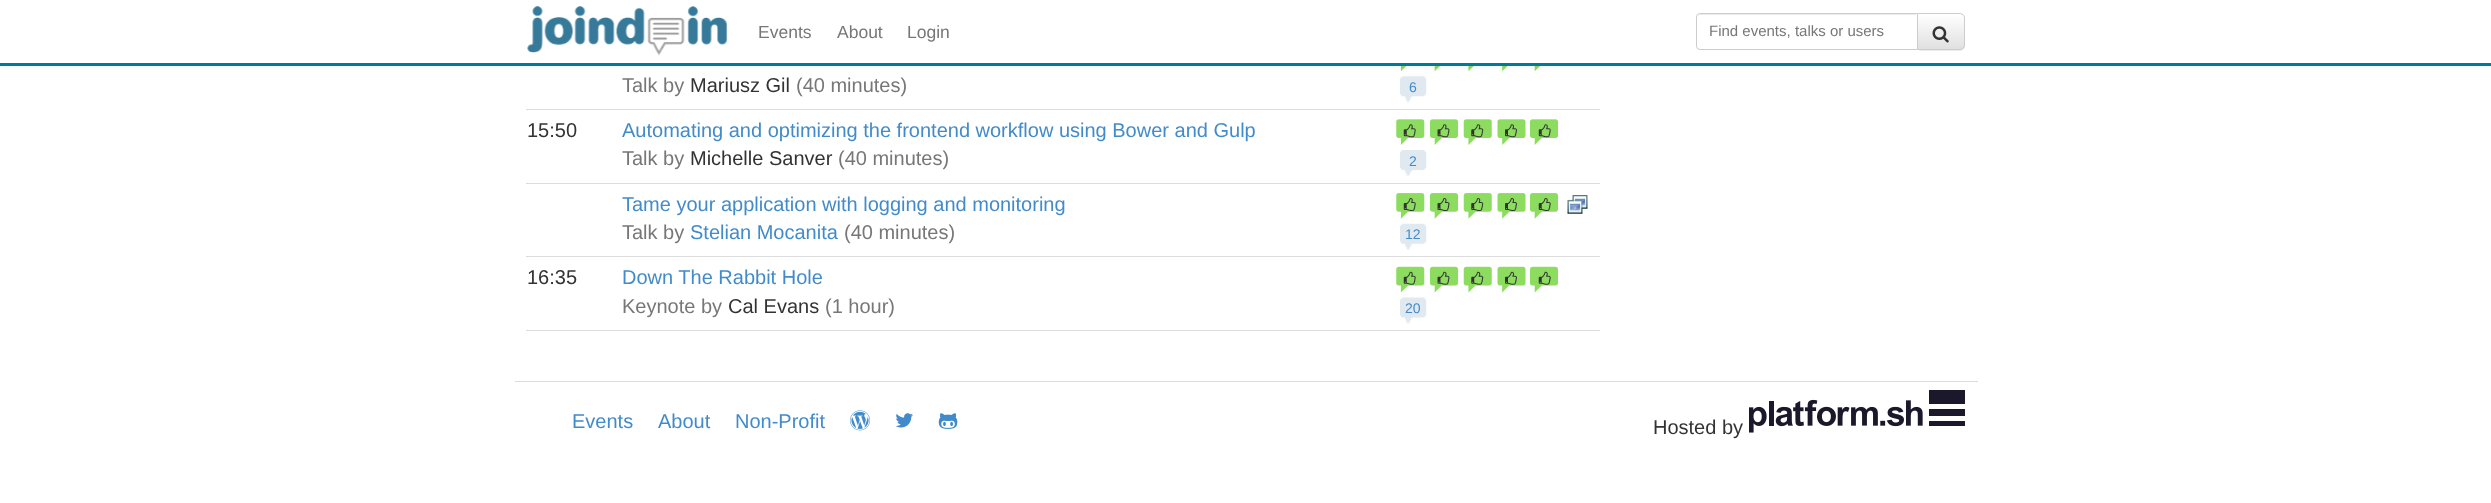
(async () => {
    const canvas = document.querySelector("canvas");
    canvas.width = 2491;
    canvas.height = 503;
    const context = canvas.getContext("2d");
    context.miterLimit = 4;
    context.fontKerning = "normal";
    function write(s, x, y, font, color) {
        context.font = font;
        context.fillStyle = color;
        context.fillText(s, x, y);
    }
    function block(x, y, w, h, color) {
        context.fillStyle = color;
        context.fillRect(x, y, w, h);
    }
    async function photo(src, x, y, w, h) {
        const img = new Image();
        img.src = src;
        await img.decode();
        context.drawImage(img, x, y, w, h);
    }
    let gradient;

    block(0, 0, 2491, 503, "rgb(255, 255, 255)");
    await photo("media/3.png", 1400, 66, 7, 5);
    await photo("media/4.png", 1434, 66, 6, 6);
    await photo("media/5.png", 1468, 66, 6, 6);
    await photo("media/6.png", 1502, 66, 6, 6);
    await photo("media/4.png", 1534, 66, 6, 6);
    context.fillStyle = "rgba(0, 0, 0, 0.07)";
    context.filter = "blur(3px)";
    context.beginPath();
    context.rect(0, 1, 2491, 65);
    context.fill();
    context.filter = "none";
    block(0, 0, 2491, 63, "rgb(255, 255, 255)");
    block(0, 63, 2491, 3, "rgb(0, 123, 151)");
    await photo("media/1.png", 527, 6, 201, 50);
    write("Events", 758, 38, "17.5px Liberation Sans", "rgb(119, 119, 119)");
    write("About", 837, 38, "17.5px Liberation Sans", "rgb(119, 119, 119)");
    write("Login", 907, 38, "17.5px Liberation Sans", "rgb(119, 119, 119)");
    context.fillStyle = "rgba(0, 0, 0, 0.07)";
    context.filter = "blur(0.5px)";
    context.beginPath();
    context.roundRect(1916, 14, 49, 37, 5);
    context.fill();
    context.filter = "none";
    context.save();
    context.beginPath();
    context.roundRect(1916, 13, 49, 37, [0, 5, 5, 0]);
    context.clip();
    gradient = context.createLinearGradient(1941, 14, 1941, 49);
    gradient.addColorStop(0, "rgb(255, 255, 255)");
    gradient.addColorStop(1, "rgb(224, 224, 224)");
    context.fillStyle = gradient;
    context.fillRect(1918, 14, 47, 35);
    context.restore();
    context.beginPath();
    context.roundRect(1916.5, 13.5, 48, 36, [0, 4.5, 4.5, 0]);
    context.strokeStyle = "rgb(204, 204, 204)";
    context.stroke();
    context.fillStyle = "rgb(255, 255, 255)";
    context.beginPath();
    context.roundRect(1696, 13, 222, 37, [4, 0, 0, 4]);
    context.fill();
    context.fillStyle = "rgb(236, 236, 236)";
    context.beginPath();
    context.moveTo(1700, 15);
    context.lineTo(1916, 15);
    context.lineTo(1916, 14);
    context.lineTo(1700, 14);
    context.bezierCurveTo(1698, 15, 1698, 17, 1698, 18);
    context.bezierCurveTo(1698, 16, 1699, 15, 1700, 15);
    context.closePath();
    context.fill();
    context.beginPath();
    context.roundRect(1696.5, 13.5, 221, 36, [3.5, 0, 0, 3.5]);
    context.stroke();
    write("Find events, talks or users", 1709, 36, "15px Liberation Sans", "rgb(119, 119, 119)");
    await photo("media/2.png", 1932, 26, 17, 17);
    write("Talk by", 622, 92, "20px Liberation Sans", "rgb(119, 119, 119)");
    write("Mariusz Gil", 690, 92, "20px Liberation Sans", "rgb(51, 51, 51)");
    write("(40 minutes)", 796, 92, "20px Liberation Sans", "rgb(119, 119, 119)");
    await photo("media/7.png", 1400, 76, 27, 27);
    write("6", 1409, 92, "14px Liberation Sans", "rgb(66, 139, 202)");
    write("15:50", 527, 137, "20px Liberation Sans", "rgb(51, 51, 51)");
    block(526, 109, 1074, 1, "rgb(221, 221, 221)");
    write("Automating and optimizing the frontend workflow using Bower and Gulp", 622, 137, "20px Liberation Sans", "rgb(66, 139, 202)");
    write("Talk by", 622, 165, "20px Liberation Sans", "rgb(119, 119, 119)");
    write("Michelle Sanver", 690, 165, "20px Liberation Sans", "rgb(51, 51, 51)");
    write("(40 minutes)", 838, 165, "20px Liberation Sans", "rgb(119, 119, 119)");
    await photo("media/8.png", 1396, 119, 29, 26);
    await photo("media/9.png", 1403, 124, 13, 14);
    await photo("media/10.png", 1430, 119, 28, 26);
    await photo("media/11.png", 1437, 124, 13, 14);
    await photo("media/12.png", 1463, 119, 29, 26);
    await photo("media/13.png", 1471, 124, 13, 14);
    await photo("media/14.png", 1497, 119, 29, 26);
    await photo("media/15.png", 1505, 124, 12, 14);
    await photo("media/10.png", 1530, 119, 28, 26);
    await photo("media/9.png", 1538, 124, 13, 14);
    await photo("media/16.png", 1400, 150, 27, 27);
    write("2", 1409, 166, "14px Liberation Sans", "rgb(66, 139, 202)");
    block(526, 183, 1074, 1, "rgb(221, 221, 221)");
    write("Tame your application with logging and monitoring", 622, 211, "20px Liberation Sans", "rgb(66, 139, 202)");
    write("Talk by", 622, 239, "20px Liberation Sans", "rgb(119, 119, 119)");
    write("Stelian Mocanita", 690, 239, "20px Liberation Sans", "rgb(66, 139, 202)");
    write("(40 minutes)", 844, 239, "20px Liberation Sans", "rgb(119, 119, 119)");
    await photo("media/17.png", 1396, 193, 29, 26);
    await photo("media/18.png", 1403, 198, 13, 13);
    await photo("media/19.png", 1430, 193, 28, 26);
    await photo("media/20.png", 1437, 198, 13, 13);
    await photo("media/21.png", 1463, 193, 29, 26);
    await photo("media/22.png", 1471, 198, 13, 13);
    await photo("media/23.png", 1497, 193, 29, 26);
    await photo("media/24.png", 1505, 198, 12, 13);
    await photo("media/19.png", 1530, 193, 28, 26);
    await photo("media/18.png", 1538, 198, 13, 13);
    await photo("media/25.png", 1567, 195, 21, 19);
    await photo("media/26.png", 1400, 223, 27, 27);
    write("12", 1405, 239, "14px Liberation Sans", "rgb(66, 139, 202)");
    write("16:35", 527, 284, "20px Liberation Sans", "rgb(51, 51, 51)");
    block(526, 256, 1074, 1, "rgb(221, 221, 221)");
    block(526, 330, 1074, 1, "rgb(221, 221, 221)");
    write("Down The Rabbit Hole", 622, 284, "20px Liberation Sans", "rgb(66, 139, 202)");
    write("Keynote by", 622, 313, "20px Liberation Sans", "rgb(119, 119, 119)");
    write("Cal Evans", 728, 313, "20px Liberation Sans", "rgb(51, 51, 51)");
    write("(1 hour)", 825, 313, "20px Liberation Sans", "rgb(119, 119, 119)");
    await photo("media/27.png", 1396, 266, 29, 27);
    await photo("media/28.png", 1403, 271, 13, 14);
    await photo("media/29.png", 1430, 266, 28, 27);
    await photo("media/30.png", 1437, 271, 13, 14);
    await photo("media/31.png", 1463, 266, 29, 27);
    await photo("media/32.png", 1471, 271, 13, 14);
    await photo("media/33.png", 1497, 266, 29, 27);
    await photo("media/34.png", 1505, 271, 12, 14);
    await photo("media/29.png", 1530, 266, 28, 27);
    await photo("media/28.png", 1538, 271, 13, 14);
    await photo("media/35.png", 1400, 297, 27, 27);
    write("20", 1405, 313, "14px Liberation Sans", "rgb(66, 139, 202)");
    block(515, 381, 1463, 1, "rgb(215, 220, 223)");
    write("Events", 572, 428, "20px Liberation Sans", "rgb(66, 139, 202)");
    write("About", 658, 428, "20px Liberation Sans", "rgb(66, 139, 202)");
    write("Non-Profit", 735, 428, "20px Liberation Sans", "rgb(66, 139, 202)");
    await photo("media/36.png", 850, 410, 20, 21);
    await photo("media/37.png", 895, 413, 18, 15);
    await photo("media/38.png", 938, 413, 20, 16);
    write("Hosted by", 1653, 434, "20px Liberation Sans", "rgb(51, 51, 51)");
    await photo("media/39.png", 1749, 390, 216, 43);
})();
